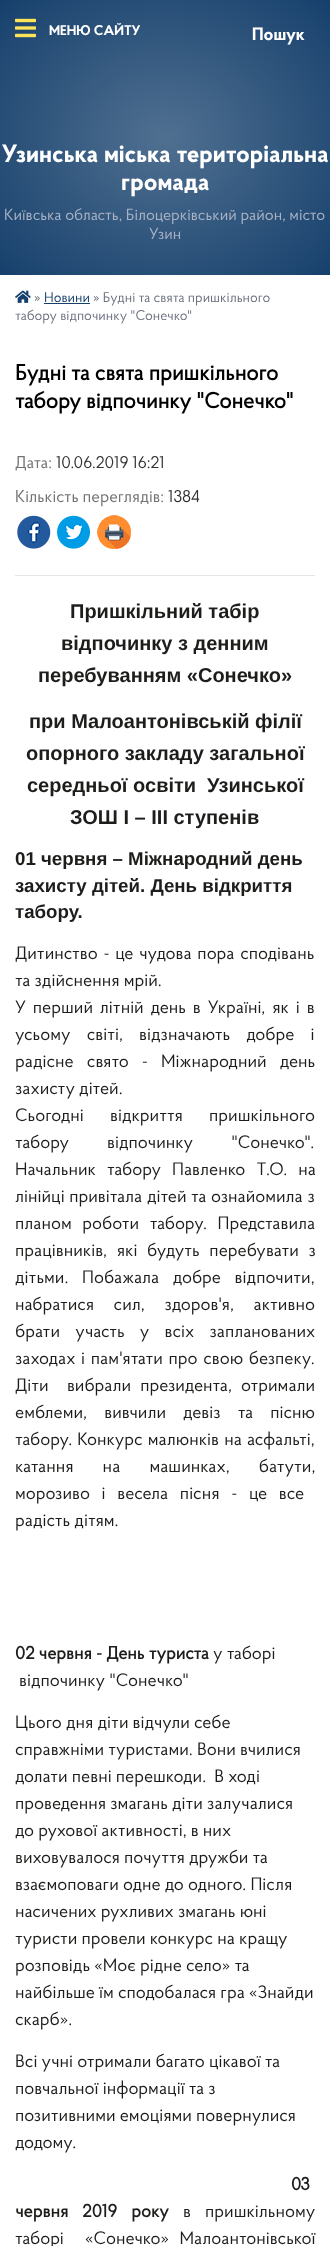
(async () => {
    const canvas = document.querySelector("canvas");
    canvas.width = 330;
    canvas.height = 2246;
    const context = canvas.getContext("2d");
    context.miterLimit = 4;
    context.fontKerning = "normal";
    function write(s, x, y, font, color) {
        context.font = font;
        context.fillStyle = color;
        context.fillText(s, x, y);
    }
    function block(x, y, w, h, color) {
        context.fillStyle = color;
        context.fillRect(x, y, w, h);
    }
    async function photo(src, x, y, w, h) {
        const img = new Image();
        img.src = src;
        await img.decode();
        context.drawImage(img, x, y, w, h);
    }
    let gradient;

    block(0, 0, 330, 2246, "rgb(255, 255, 255)");
    gradient = context.createRadialGradient(165, 165.74, 0, 165, 165.74, 233);
    gradient.addColorStop(0, "rgb(80, 112, 145)");
    gradient.addColorStop(1, "rgb(22, 64, 108)");
    context.fillStyle = gradient;
    context.beginPath();
    context.rect(0, 0, 330, 275);
    context.save();
    context.clip();
    context.scale(1, 194 / 233);
    context.fillRect(0, 0, 330, 2698);
    context.restore();
    await photo("media/1.png", 15, 18, 21, 20);
    write("МЕНЮ САЙТУ", 49, 35, "bold 14px 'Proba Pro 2'", "rgb(255, 255, 255)");
    write("Пошук", 252, 40, "bold 18px 'Proba Pro 2'", "rgb(255, 255, 255)");
    write("Узинська міська територіальна", 2, 162, "bold 25px 'Proba Pro 2'", "rgb(255, 255, 255)");
    write("громада", 121, 190, "bold 25px 'Proba Pro 2'", "rgb(255, 255, 255)");
    write("Київська область, Білоцерківський район, місто", 4, 220, "16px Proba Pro", "rgb(170, 179, 198)");
    write("Узин", 149, 239, "16px Proba Pro", "rgb(170, 179, 198)");
    await photo("media/2.png", 15, 290, 16, 13);
    write("»", 34, 302, "14px Proba Pro", "rgb(109, 115, 129)");
    write("Новини", 44, 302, "14px Proba Pro", "rgb(22, 64, 108)");
    block(44, 303, 46, 1, "rgb(22, 64, 108)");
    write("» Будні та свята пришкільного", 93, 302, "14px Proba Pro", "rgb(109, 115, 129)");
    write("табору відпочинку \"Сонечко\"", 15, 320, "14px Proba Pro", "rgb(109, 115, 129)");
    write("Будні та свята пришкільного", 15, 380, "bold 22px Proba Pro", "rgb(0, 0, 0)");
    write("табору відпочинку \"Сонечко\"", 15, 408, "bold 22px Proba Pro", "rgb(0, 0, 0)");
    write("Дата:", 15, 468, "17px Proba Pro", "rgb(114, 114, 114)");
    write("10.06.2019 16:21", 56, 468, "17px Proba Pro", "rgb(51, 51, 51)");
    write("Кількість переглядів:", 15, 502, "17px Proba Pro", "rgb(114, 114, 114)");
    write("1384", 168, 502, "17px Proba Pro", "rgb(51, 51, 51)");
    await photo("media/3.png", 17, 515, 34, 34);
    await photo("media/4.png", 57, 515, 33, 34);
    await photo("media/5.png", 97, 515, 34, 34);
    block(15, 575, 300, 1, "rgb(229, 229, 229)");
    write("Пришкільний табір", 70, 618, "bold 20px Liberation Sans", "rgb(29, 29, 27)");
    write("відпочинку з денним", 61, 650, "bold 20px Liberation Sans", "rgb(29, 29, 27)");
    write("перебуванням «Сонечко»", 38, 682, "bold 20px Liberation Sans", "rgb(29, 29, 27)");
    write("при Малоантонівській філії", 29, 728, "bold 20px Liberation Sans", "rgb(29, 29, 27)");
    write("опорного закладу загальної", 26, 760, "bold 20px Liberation Sans", "rgb(29, 29, 27)");
    write("середньої освіти", 27, 792, "bold 20px Liberation Sans", "rgb(29, 29, 27)");
    write("Узинської", 207, 792, "bold 20px Liberation Sans", "rgb(29, 29, 27)");
    write("ЗОШ І – ІІІ ступенів", 70, 824, "bold 20px Liberation Sans", "rgb(29, 29, 27)");
    write("01 червня – Міжнародний день", 15, 865, "bold 18.7px Liberation Sans", "rgb(29, 29, 27)");
    write("захисту дітей. День відкриття", 15, 892, "bold 18.7px Liberation Sans", "rgb(29, 29, 27)");
    write("табору.", 15, 918, "bold 18.7px Liberation Sans", "rgb(29, 29, 27)");
    context.wordSpacing = "1.5px";
    write("Дитинство - це чудова пора сподівань", 15, 959, "18px Proba Pro", "rgb(29, 29, 27)");
    context.wordSpacing = "0px";
    write("та здійснення мрій.", 15, 986, "18px Proba Pro", "rgb(29, 29, 27)");
    context.wordSpacing = "2.75px";
    write("У перший літній день в Україні, як і в", 15, 1013, "18px Proba Pro", "rgb(29, 29, 27)");
    context.wordSpacing = "12px";
    write("усьому світі, відзначають добре і", 15, 1040, "18px Proba Pro", "rgb(29, 29, 27)");
    context.wordSpacing = "9px";
    write("радісне свято - Міжнародний день", 15, 1067, "18px Proba Pro", "rgb(29, 29, 27)");
    context.wordSpacing = "0px";
    write("захисту дітей.", 15, 1094, "18px Proba Pro", "rgb(29, 29, 27)");
    context.wordSpacing = "22px";
    write("Сьогодні відкриття пришкільного", 15, 1121, "18px Proba Pro", "rgb(29, 29, 27)");
    context.wordSpacing = "34px";
    write("табору відпочинку \"Сонечко\".", 15, 1148, "18px Proba Pro", "rgb(29, 29, 27)");
    context.wordSpacing = "7px";
    write("Начальник табору Павленко Т.О. на", 15, 1175, "18px Proba Pro", "rgb(29, 29, 27)");
    context.wordSpacing = "0.5px";
    write("лінійці привітала дітей та ознайомила з", 15, 1202, "18px Proba Pro", "rgb(29, 29, 27)");
    context.wordSpacing = "6.5px";
    write("планом роботи табору. Представила", 15, 1229, "18px Proba Pro", "rgb(29, 29, 27)");
    context.wordSpacing = "5.5px";
    write("працівників, які будуть перебувати з", 15, 1256, "18px Proba Pro", "rgb(29, 29, 27)");
    context.wordSpacing = "9.5px";
    write("дітьми. Побажала добре відпочити,", 15, 1283, "18px Proba Pro", "rgb(29, 29, 27)");
    context.wordSpacing = "15.5px";
    write("набратися сил, здоров'я, активно", 15, 1310, "18px Proba Pro", "rgb(29, 29, 27)");
    context.wordSpacing = "11px";
    write("брати участь у всіх запланованих", 15, 1337, "18px Proba Pro", "rgb(29, 29, 27)");
    context.wordSpacing = "1.5px";
    write("заходах і пам'ятати про свою безпеку.", 15, 1364, "18px Proba Pro", "rgb(29, 29, 27)");
    context.wordSpacing = "5px";
    write("Діти  вибрали президента, отримали", 15, 1391, "18px Proba Pro", "rgb(29, 29, 27)");
    context.wordSpacing = "13px";
    write("емблеми, вивчили девіз та пісню", 15, 1418, "18px Proba Pro", "rgb(29, 29, 27)");
    context.wordSpacing = "1px";
    write("табору. Конкурс малюнків на асфальті,", 15, 1445, "18px Proba Pro", "rgb(29, 29, 27)");
    context.wordSpacing = "25px";
    write("катання на машинках, батути,", 15, 1472, "18px Proba Pro", "rgb(29, 29, 27)");
    context.wordSpacing = "7.5px";
    write("морозиво і весела пісня - це все", 15, 1499, "18px Proba Pro", "rgb(29, 29, 27)");
    context.wordSpacing = "0px";
    write("радість дітям.", 15, 1526, "18px Proba Pro", "rgb(29, 29, 27)");
    write("02 червня - День туриста", 15, 1659, "bold 18px Proba Pro", "rgb(29, 29, 27)");
    write("у таборі", 213, 1659, "18px Proba Pro", "rgb(29, 29, 27)");
    write("відпочинку \"Сонечко\"", 19, 1686, "18px Proba Pro", "rgb(29, 29, 27)");
    write("Цього дня діти відчули себе", 15, 1728, "18px Proba Pro", "rgb(29, 29, 27)");
    write("справжніми туристами. Вони вчилися", 15, 1755, "18px Proba Pro", "rgb(29, 29, 27)");
    write("долати певні перешкоди.  В ході", 15, 1782, "18px Proba Pro", "rgb(29, 29, 27)");
    write("проведення змагань діти залучалися", 15, 1809, "18px Proba Pro", "rgb(29, 29, 27)");
    write("до рухової активності, в них", 15, 1836, "18px Proba Pro", "rgb(29, 29, 27)");
    write("виховувалося почуття дружби та", 15, 1863, "18px Proba Pro", "rgb(29, 29, 27)");
    write("взаємоповаги одне до одного. Після", 15, 1890, "18px Proba Pro", "rgb(29, 29, 27)");
    write("насичених рухливих змагань юні", 15, 1917, "18px Proba Pro", "rgb(29, 29, 27)");
    write("туристи провели конкурс на кращу", 15, 1944, "18px Proba Pro", "rgb(29, 29, 27)");
    write("розповідь «Моє рідне село» та", 15, 1971, "18px Proba Pro", "rgb(29, 29, 27)");
    write("найбільше їм сподобалася гра «Знайди", 15, 1998, "18px Proba Pro", "rgb(29, 29, 27)");
    write("скарб».", 15, 2025, "18px Proba Pro", "rgb(29, 29, 27)");
    write("Всі учні отримали багато цікавої та", 15, 2067, "18px Proba Pro", "rgb(29, 29, 27)");
    write("повчальної інформації та з", 15, 2094, "18px Proba Pro", "rgb(29, 29, 27)");
    write("позитивними емоціями повернулися", 15, 2121, "18px Proba Pro", "rgb(29, 29, 27)");
    write("додому.", 15, 2148, "18px Proba Pro", "rgb(29, 29, 27)");
    write("03", 291, 2190, "bold 18px Proba Pro", "rgb(29, 29, 27)");
    context.wordSpacing = "10px";
    write("червня 2019 року", 15, 2217, "bold 18px Proba Pro", "rgb(29, 29, 27)");
    write("в пришкільному", 183, 2217, "18px Proba Pro", "rgb(29, 29, 27)");
    context.wordSpacing = "6.5px";
    write("таборі  «Сонечко» Малоантонівської", 15, 2244, "18px Proba Pro", "rgb(29, 29, 27)");
})();
